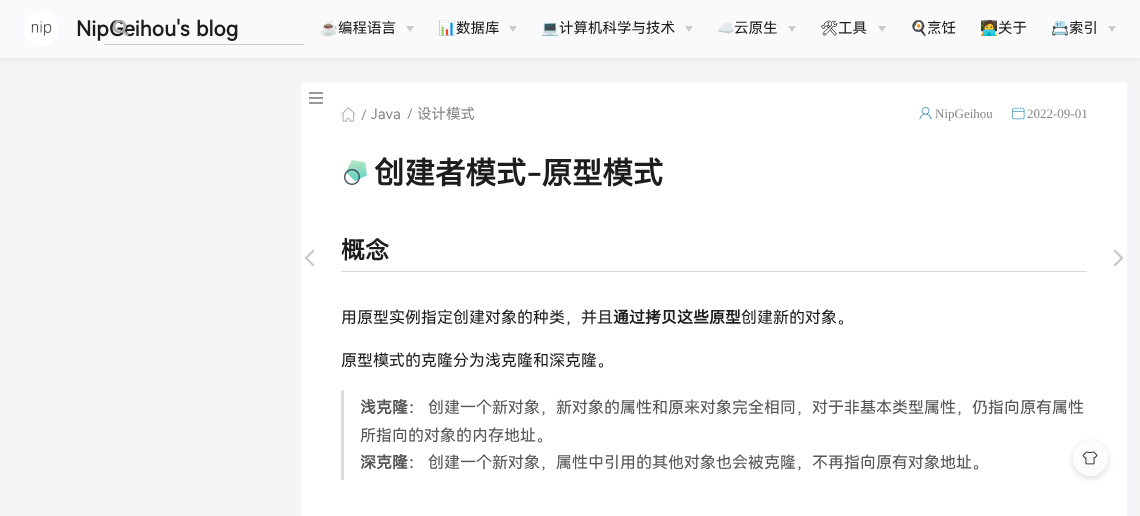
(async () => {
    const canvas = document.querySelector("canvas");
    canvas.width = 1140;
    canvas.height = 516;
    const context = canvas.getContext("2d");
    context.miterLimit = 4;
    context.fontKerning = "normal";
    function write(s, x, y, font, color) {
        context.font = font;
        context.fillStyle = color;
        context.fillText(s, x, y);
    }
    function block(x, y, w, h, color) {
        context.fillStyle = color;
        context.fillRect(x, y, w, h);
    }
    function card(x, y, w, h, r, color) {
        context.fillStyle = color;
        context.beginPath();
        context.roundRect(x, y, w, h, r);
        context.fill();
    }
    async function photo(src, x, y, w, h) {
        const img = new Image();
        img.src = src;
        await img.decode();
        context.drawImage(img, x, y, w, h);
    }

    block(0, 0, 1140, 516, "rgb(245, 245, 247)");
    context.fillStyle = "rgba(0, 0, 0, 0.06)";
    context.filter = "blur(2.5px)";
    context.beginPath();
    context.rect(0, 2, 1140, 58);
    context.fill();
    context.filter = "none";
    block(0, 0, 1140, 58, "rgb(250, 250, 252)");
    await photo("media/1.png", 24, 11, 35, 35);
    write("NipGeihou's", 76, 36, "bold 20.75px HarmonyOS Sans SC", "rgb(29, 29, 31)");
    write("blog", 196, 36, "bold 20.75px HarmonyOS Sans SC", "rgb(29, 29, 31)");
    context.beginPath();
    context.moveTo(128, 35.5);
    context.lineTo(122.5, 30.5);
    context.strokeStyle = "rgb(170, 170, 170)";
    context.lineWidth = 2.7;
    context.stroke();
    context.save();
    context.beginPath();
    context.rect(113, 20, 16, 18);
    context.clip();
    context.beginPath();
    context.arc(119.5, 26.5, 5.5, 0, Math.PI * 2);
    context.stroke();
    context.restore();
    block(104, 44, 200, 1, "rgb(204, 204, 204)");
    write("☕️", 320, 33, "14.5px Noto Color Emoji", "rgb(29, 29, 31)");
    write("编程语言", 338, 33, "14.5px HarmonyOS Sans SC", "rgb(29, 29, 31)");
    context.fillStyle = "rgb(204, 204, 204)";
    context.beginPath();
    context.moveTo(406, 26);
    context.lineTo(414, 26);
    context.lineTo(410, 32);
    context.closePath();
    context.fill();
    write("📊", 438, 33, "14.5px Noto Color Emoji", "rgb(29, 29, 31)");
    write("数据库", 456, 33, "14.5px HarmonyOS Sans SC", "rgb(29, 29, 31)");
    context.fillStyle = "rgb(204, 204, 204)";
    context.beginPath();
    context.moveTo(509, 26);
    context.lineTo(517, 26);
    context.lineTo(513, 32);
    context.closePath();
    context.fill();
    write("💻", 541, 33, "14.5px Noto Color Emoji", "rgb(29, 29, 31)");
    write("计算机科学与技术", 559, 33, "14.5px HarmonyOS Sans SC", "rgb(29, 29, 31)");
    context.fillStyle = "rgb(204, 204, 204)";
    context.beginPath();
    context.moveTo(685, 26);
    context.lineTo(693, 26);
    context.lineTo(689, 32);
    context.closePath();
    context.fill();
    write("☁️", 717, 33, "14.5px Noto Color Emoji", "rgb(29, 29, 31)");
    write("云原生", 734, 33, "14.5px HarmonyOS Sans SC", "rgb(29, 29, 31)");
    context.fillStyle = "rgb(204, 204, 204)";
    context.beginPath();
    context.moveTo(788, 26);
    context.lineTo(796, 26);
    context.lineTo(792, 32);
    context.closePath();
    context.fill();
    write("🛠", 820, 33, "500 14.5px Noto Emoji", "rgb(29, 29, 31)");
    write("工具", 838, 33, "14.5px HarmonyOS Sans SC", "rgb(29, 29, 31)");
    context.fillStyle = "rgb(204, 204, 204)";
    context.beginPath();
    context.moveTo(878, 26);
    context.lineTo(886, 26);
    context.lineTo(882, 32);
    context.closePath();
    context.fill();
    write("🍳", 910, 33, "14.5px Noto Color Emoji", "rgb(29, 29, 31)");
    write("烹饪", 927, 33, "14.5px HarmonyOS Sans SC", "rgb(29, 29, 31)");
    write("🧑‍💻", 980, 33, "14.5px Noto Color Emoji", "rgb(29, 29, 31)");
    write("关于", 998, 33, "14.5px HarmonyOS Sans SC", "rgb(29, 29, 31)");
    write("📇", 1051, 33, "14.5px Noto Color Emoji", "rgb(29, 29, 31)");
    write("索引", 1069, 33, "14.5px HarmonyOS Sans SC", "rgb(29, 29, 31)");
    context.fillStyle = "rgb(204, 204, 204)";
    context.beginPath();
    context.moveTo(1108, 26);
    context.lineTo(1116, 26);
    context.lineTo(1112, 32);
    context.closePath();
    context.fill();
    card(301, 82, 826, 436, 2, "rgb(255, 255, 255)");
    await photo("media/2.png", 309, 92, 14, 12);
    await photo("media/3.png", 341, 107, 15, 15);
    write("/", 361, 120, "14.5px HarmonyOS Sans SC", "rgb(153, 153, 153)");
    write("Java", 371, 119, "14.5px HarmonyOS Sans SC", "rgb(136, 136, 136)");
    write("/", 407, 119, "14.5px HarmonyOS Sans SC", "rgb(153, 153, 153)");
    write("设计模式", 417, 119, "14.5px HarmonyOS Sans SC", "rgb(136, 136, 136)");
    await photo("media/4.png", 919, 107, 13, 13);
    write("NipGeihou", 935, 118, "13px Liberation Serif", "rgb(136, 136, 136)");
    await photo("media/5.png", 1012, 107, 13, 13);
    write("2022-09-01", 1027, 118, "13px Liberation Serif", "rgb(136, 136, 136)");
    await photo("media/6.png", 344, 160, 23, 25);
    write("创建者模式-原型模式", 374, 184, "bold 30.5px HarmonyOS Sans SC", "rgb(29, 29, 31)");
    block(341, 271, 746, 1, "rgb(217, 217, 217)");
    write("概念", 341, 259, "bold 24px HarmonyOS Sans SC", "rgb(29, 29, 31)");
    write("用原型实例指定创建对象的种类，并且", 341, 323, "16px HarmonyOS Sans SC", "rgb(29, 29, 31)");
    write("通过拷贝这些原型", 613, 323, "bold 16px HarmonyOS Sans SC", "rgb(29, 29, 31)");
    write("创建新的对象。", 741, 323, "16px HarmonyOS Sans SC", "rgb(29, 29, 31)");
    write("原型模式的克隆分为浅克隆和深克隆。", 341, 366, "16px HarmonyOS Sans SC", "rgb(29, 29, 31)");
    block(341, 390, 3, 90, "rgb(220, 220, 220)");
    write("浅克隆：", 360, 413, "bold 16px HarmonyOS Sans SC", "rgb(86, 86, 87)");
    write("创建一个新对象，新对象的属性和原来对象完全相同，对于非基本类型属性，仍指向原有属性", 428, 413, "16px HarmonyOS Sans SC", "rgb(86, 86, 87)");
    write("所指向的对象的内存地址。", 360, 441, "16px HarmonyOS Sans SC", "rgb(86, 86, 87)");
    write("深克隆：", 360, 468, "bold 16px HarmonyOS Sans SC", "rgb(86, 86, 87)");
    write("创建一个新对象，属性中引用的其他对象也会被克隆，不再指向原有对象地址。", 428, 468, "16px HarmonyOS Sans SC", "rgb(86, 86, 87)");
    context.fillStyle = "rgb(199, 199, 199)";
    context.beginPath();
    context.moveTo(313, 266.5);
    context.lineTo(304.5, 258);
    context.lineTo(306, 256.5);
    context.lineTo(314.5, 265);
    context.closePath();
    context.fill();
    context.beginPath();
    context.moveTo(306, 259.5);
    context.lineTo(304.5, 258);
    context.lineTo(313, 249.5);
    context.lineTo(314.5, 251);
    context.closePath();
    context.fill();
    context.beginPath();
    context.moveTo(1115, 249.5);
    context.lineTo(1123.5, 258);
    context.lineTo(1122, 259.5);
    context.lineTo(1113.5, 251);
    context.closePath();
    context.fill();
    context.beginPath();
    context.moveTo(1122, 256.5);
    context.lineTo(1123.5, 258);
    context.lineTo(1115, 266.5);
    context.lineTo(1113.5, 265);
    context.closePath();
    context.fill();
    context.save();
    context.beginPath();
    context.moveTo(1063, 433);
    context.lineTo(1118, 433);
    context.lineTo(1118, 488);
    context.lineTo(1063, 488);
    context.closePath();
    context.moveTo(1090.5, 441);
    context.bezierCurveTo(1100, 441, 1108, 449, 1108, 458.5);
    context.bezierCurveTo(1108, 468, 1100, 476, 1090.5, 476);
    context.bezierCurveTo(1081, 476, 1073, 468, 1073, 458.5);
    context.bezierCurveTo(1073, 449, 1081, 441, 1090.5, 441);
    context.closePath();
    context.clip("evenodd");
    context.fillStyle = "rgba(0, 0, 0, 0.15)";
    context.filter = "blur(3px)";
    context.beginPath();
    context.roundRect(1073, 443, 35, 35, 17.5);
    context.fill();
    context.filter = "none";
    context.restore();
    context.fillStyle = "rgba(251, 251, 253, 0.8)";
    context.beginPath();
    context.arc(1090.5, 458.5, 17.5, 0, Math.PI * 2);
    context.fill();
    await photo("media/7.png", 1082, 451, 16, 14);
})();
